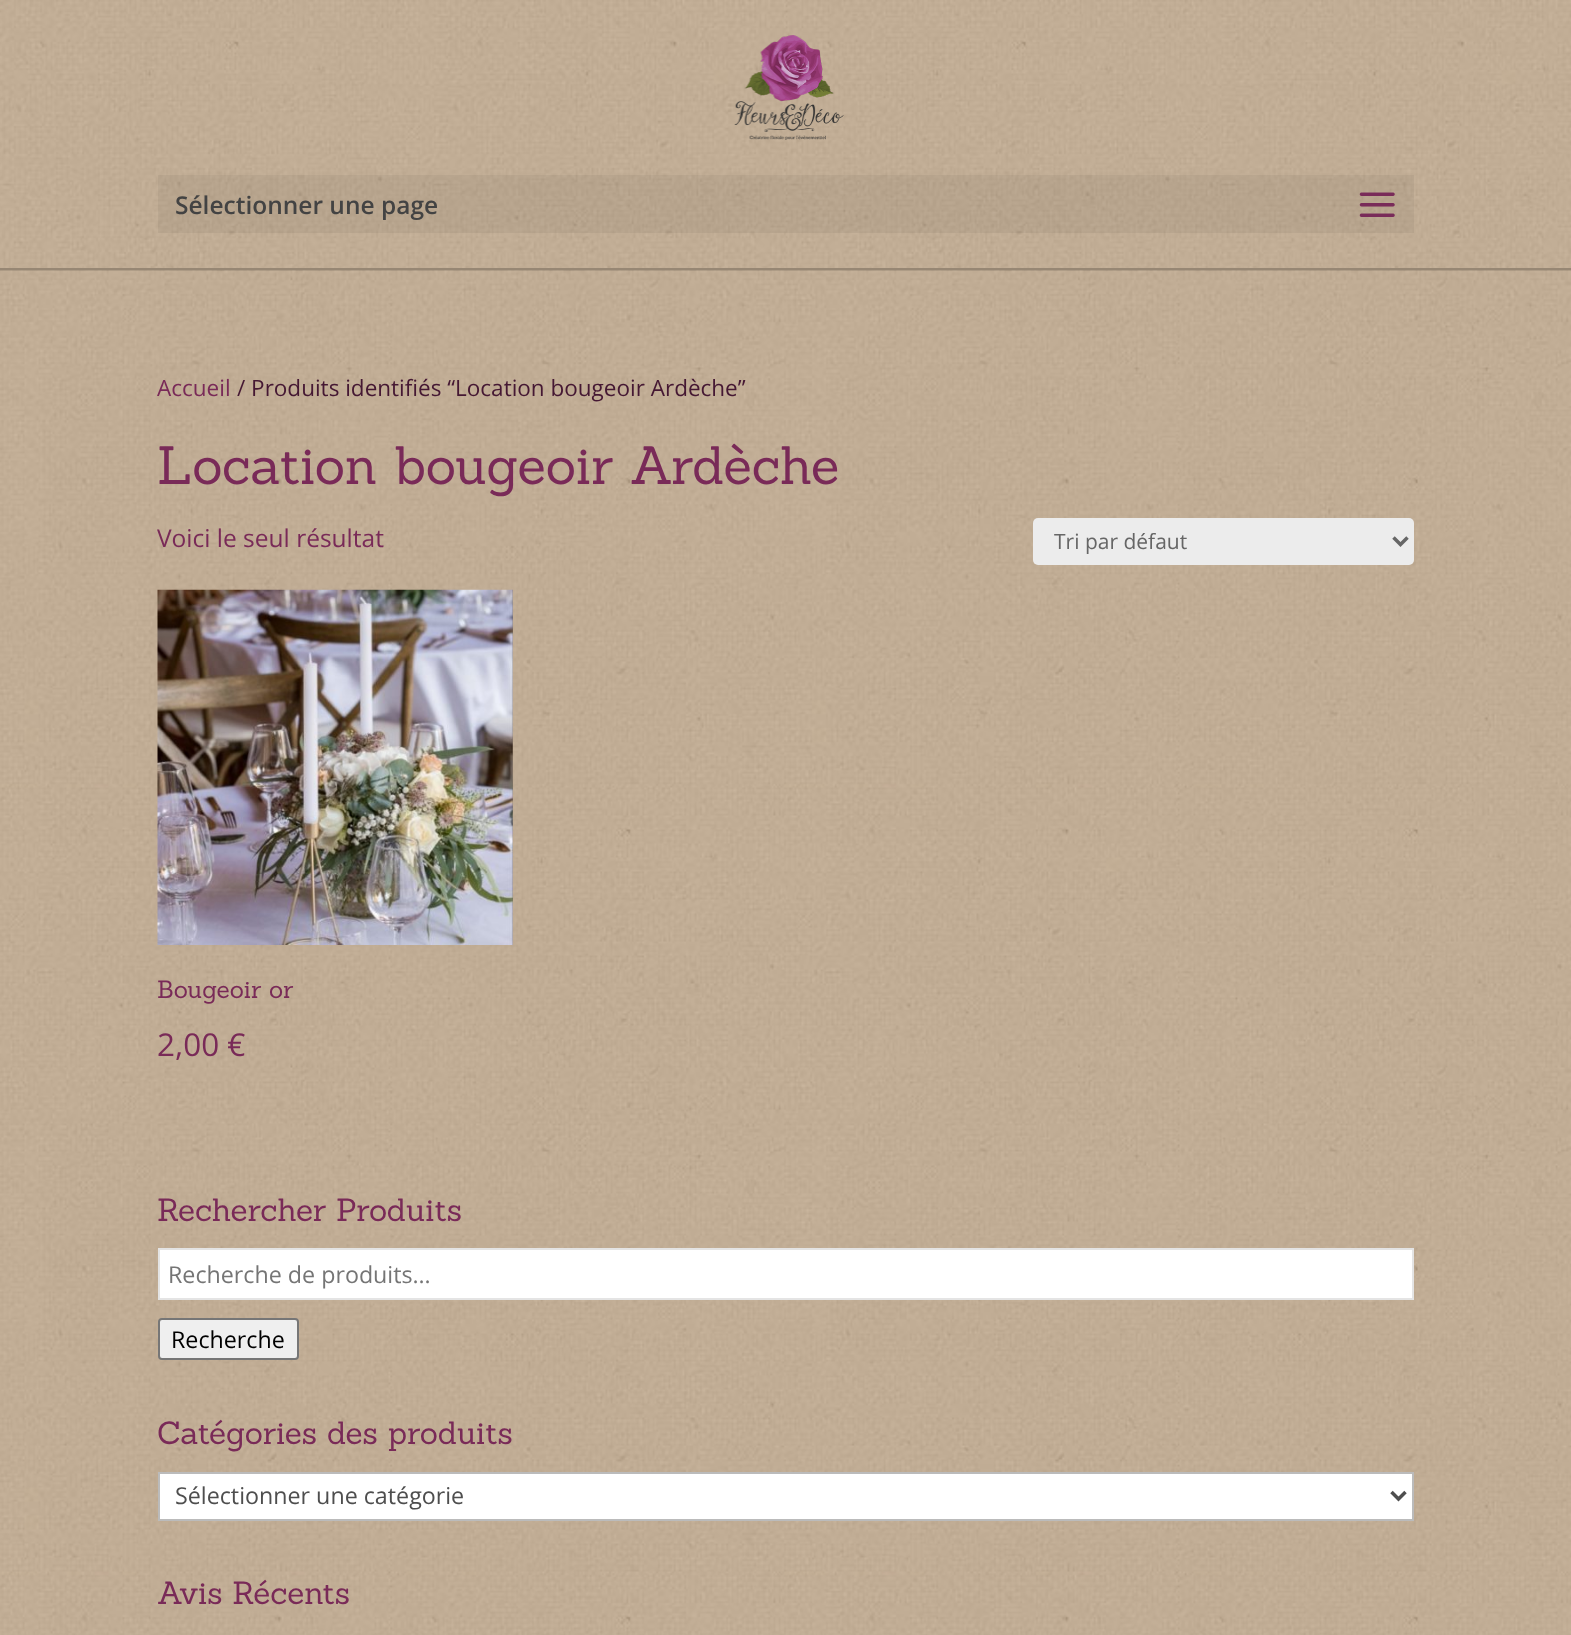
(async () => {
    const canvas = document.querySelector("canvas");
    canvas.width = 1571;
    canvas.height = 1635;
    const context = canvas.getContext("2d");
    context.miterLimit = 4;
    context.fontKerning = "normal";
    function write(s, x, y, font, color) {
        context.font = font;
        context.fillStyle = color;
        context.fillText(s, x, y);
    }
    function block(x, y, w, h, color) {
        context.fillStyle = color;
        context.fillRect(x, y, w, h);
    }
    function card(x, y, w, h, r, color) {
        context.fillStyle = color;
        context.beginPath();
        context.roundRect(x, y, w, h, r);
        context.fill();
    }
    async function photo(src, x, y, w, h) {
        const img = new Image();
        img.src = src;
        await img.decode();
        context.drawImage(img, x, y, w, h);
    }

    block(0, 0, 1571, 1635, "rgb(255, 255, 255)");
    await photo("media/1.png", 0, 270, 1571, 1365);
    context.fillStyle = "rgba(0, 0, 0, 0.1)";
    context.beginPath();
    context.moveTo(0, 270);
    context.lineTo(0, 271);
    context.lineTo(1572, 271);
    context.lineTo(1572, 2);
    context.lineTo(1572, 270);
    context.closePath();
    context.fill();
    await photo("media/2.png", 0, 0, 1571, 268);
    block(0, 268, 1571, 2, "rgb(151, 135, 116)");
    await photo("media/3.png", 734, 35, 110, 105);
    block(158, 175, 1256, 58, "rgba(0, 0, 0, 0.05)");
    write("Sélectionner une page", 175, 214, "600 24.5px Open Sans", "rgb(67, 67, 67)");
    await photo("media/4.png", 1359, 192, 36, 25);
    write("Accueil", 157, 396, "22.5px Open Sans", "rgb(121, 42, 88)");
    write("/ Produits identifiés “Location bougeoir Ardèche”", 237, 396, "22.5px Open Sans", "rgb(69, 24, 51)");
    write("Location bougeoir Ardèche", 157, 484, "52.5px Sanchez", "rgb(121, 42, 88)");
    write("Voici le seul résultat", 157, 547, "24.5px Open Sans", "rgb(121, 42, 88)");
    card(1033, 518, 381, 47, 5, "rgb(236, 236, 236)");
    context.beginPath();
    context.moveTo(1393.5, 537.5);
    context.lineTo(1400.5, 544.5);
    context.lineTo(1407.5, 537.5);
    context.strokeStyle = "rgb(102, 102, 102)";
    context.lineWidth = 3.5;
    context.stroke();
    write("Tri par défaut", 1054, 549, "21px Open Sans", "rgb(102, 102, 102)");
    await photo("media/5.png", 157, 589, 356, 356);
    write("Bougeoir or", 157, 998, "24.5px Sanchez", "rgb(121, 42, 88)");
    write("2,00 €", 157, 1056, "31.5px Open Sans", "rgb(121, 42, 88)");
    write("Rechercher Produits", 157, 1221, "31.5px Sanchez", "rgb(121, 42, 88)");
    context.fillStyle = "rgb(255, 255, 255)";
    context.beginPath();
    context.rect(159, 1249, 1254, 50);
    context.fill();
    context.strokeStyle = "rgb(228, 228, 228)";
    context.lineWidth = 2;
    context.stroke();
    write("Recherche de produits…", 168, 1283, "23.25px Open Sans", "rgb(117, 117, 117)");
    context.fillStyle = "rgb(239, 239, 239)";
    context.beginPath();
    context.roundRect(159, 1319, 139, 40, 3);
    context.fill();
    context.strokeStyle = "rgb(118, 118, 118)";
    context.stroke();
    write("Recherche", 171, 1348, "23.25px Open Sans", "rgb(0, 0, 0)");
    write("Catégories des produits", 157, 1444, "31.5px Sanchez", "rgb(121, 42, 88)");
    context.fillStyle = "rgb(255, 255, 255)";
    context.beginPath();
    context.rect(159, 1473, 1254, 47);
    context.fill();
    context.strokeStyle = "rgb(187, 187, 187)";
    context.stroke();
    context.beginPath();
    context.moveTo(1391.5, 1492);
    context.lineTo(1398.5, 1499);
    context.lineTo(1405.5, 1492);
    context.strokeStyle = "rgb(78, 78, 78)";
    context.lineWidth = 3.5;
    context.stroke();
    write("Sélectionner une catégorie", 175, 1504, "23.25px Open Sans", "rgb(78, 78, 78)");
    write("Avis Récents", 157, 1604, "31.5px Sanchez", "rgb(121, 42, 88)");
})();
